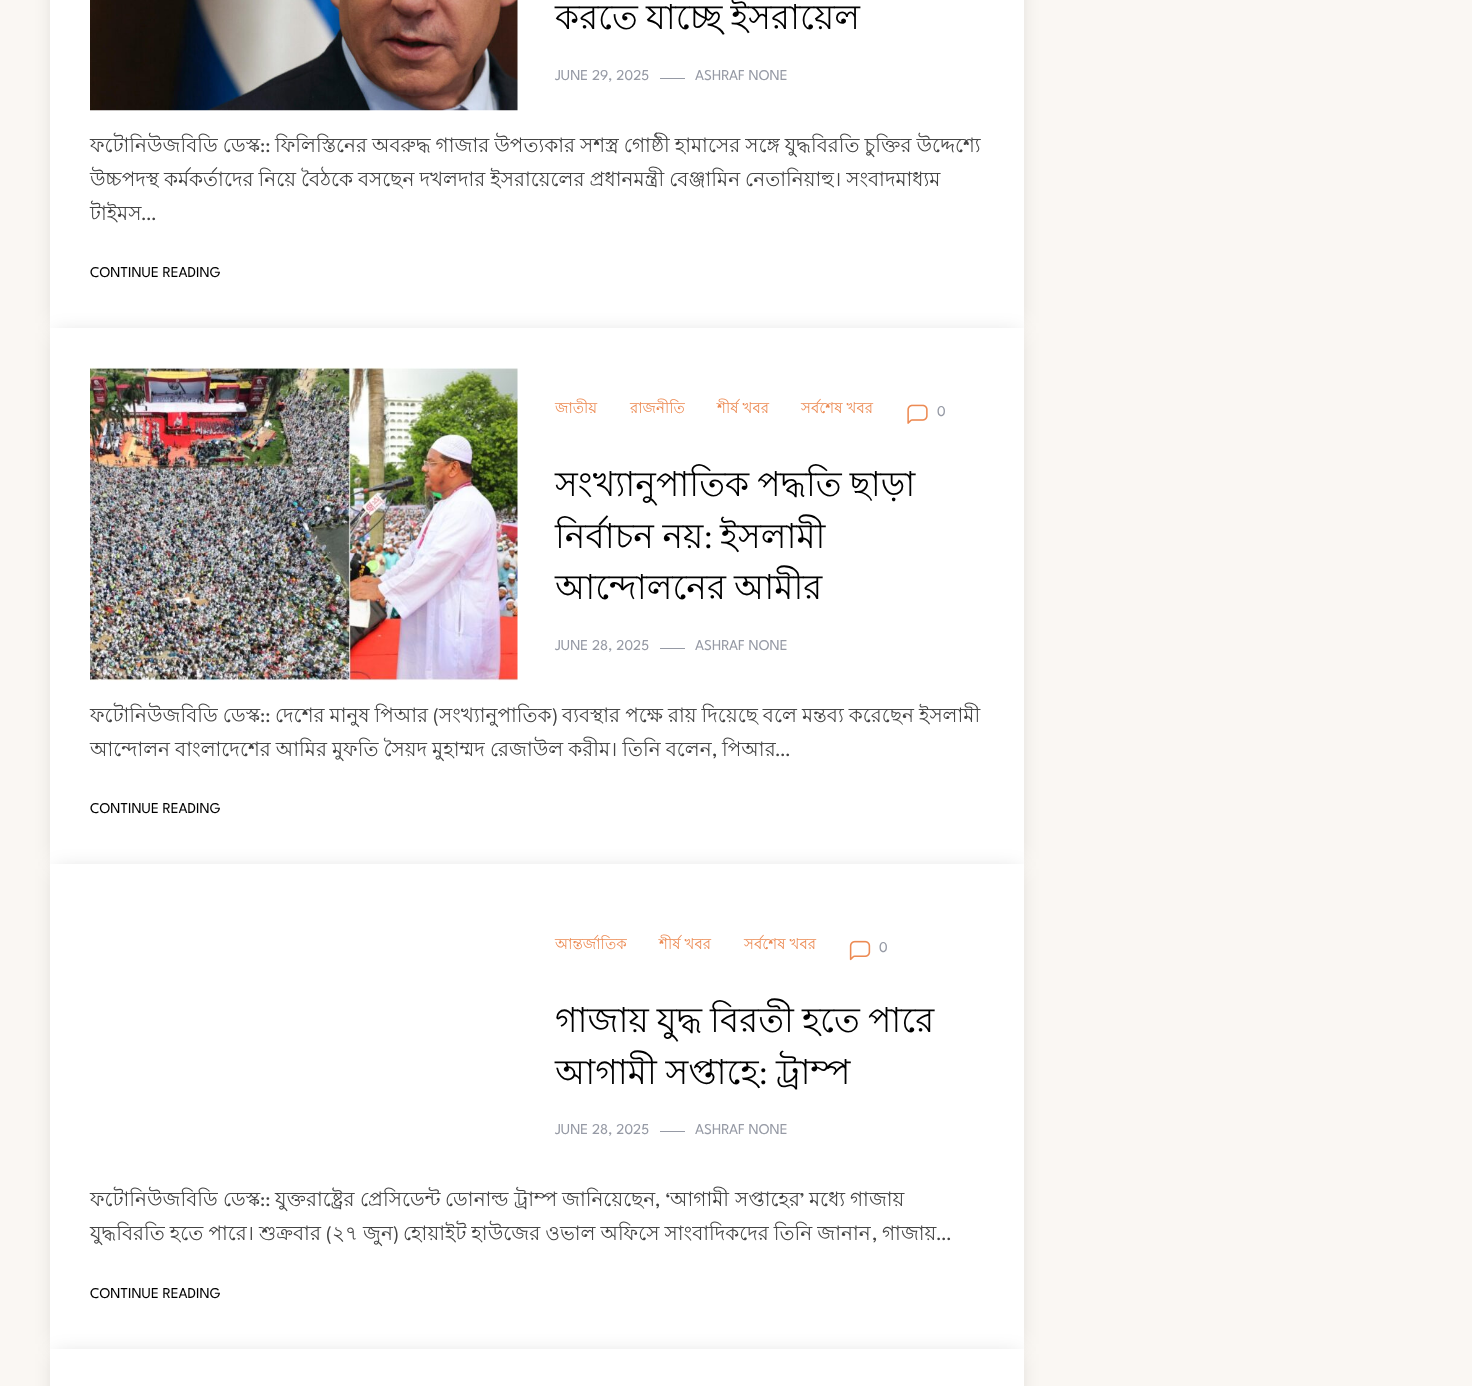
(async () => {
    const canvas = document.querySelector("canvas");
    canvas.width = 1472;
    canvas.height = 1386;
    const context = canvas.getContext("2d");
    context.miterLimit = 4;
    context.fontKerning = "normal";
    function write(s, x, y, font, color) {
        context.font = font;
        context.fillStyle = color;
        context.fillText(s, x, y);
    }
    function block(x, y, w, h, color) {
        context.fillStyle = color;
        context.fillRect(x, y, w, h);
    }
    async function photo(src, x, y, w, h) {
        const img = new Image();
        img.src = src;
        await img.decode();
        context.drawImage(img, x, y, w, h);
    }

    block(0, 0, 1472, 1386, "rgb(250, 247, 243)");
    context.fillStyle = "rgba(0, 0, 0, 0.15)";
    context.filter = "blur(10px)";
    context.beginPath();
    context.rect(55, -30, 964, 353);
    context.fill();
    context.filter = "none";
    block(50, 0, 974, 328, "rgb(255, 255, 255)");
    await photo("media/1.png", 90, 0, 428, 111);
    context.wordSpacing = "-1.5px";
    write("করতে যাচ্ছে ইসরায়েল", 555, 29, "34.5px Lohit Bengali", "rgb(0, 0, 0)");
    context.wordSpacing = "0px";
    write("JUNE 29, 2025", 555, 80, "100 15px League Spartan", "rgb(150, 154, 165)");
    block(660, 78, 25, 1, "rgb(150, 154, 165)");
    write("ASHRAF NONE", 695, 80, "100 15px League Spartan", "rgb(150, 154, 165)");
    context.wordSpacing = "-0.5px";
    write("ফটোনিউজবিডি ডেস্ক", 90, 152, "20px Lohit Bengali", "rgb(68, 68, 68)");
    context.wordSpacing = "0px";
    write("::", 260, 152, "100 20px League Spartan", "rgb(68, 68, 68)");
    context.wordSpacing = "-0.5px";
    write("ফিলিস্তিনের অবরুদ্ধ গাজার উপত্যকার সশস্ত্র গোষ্ঠী হামাসের সঙ্গে যুদ্ধবিরতি চুক্তির উদ্দেশ্যে", 275, 152, "20px Lohit Bengali", "rgb(68, 68, 68)");
    write("উচ্চপদস্থ কর্মকর্তাদের নিয়ে বৈঠকে বসছেন দখলদার ইসরায়েলের প্রধানমন্ত্রী বেঞ্জামিন নেতানিয়াহু। সংবাদমাধ্যম", 90, 186, "20px Lohit Bengali", "rgb(68, 68, 68)");
    context.wordSpacing = "0px";
    write("টাইমস", 90, 220, "20px Lohit Bengali", "rgb(68, 68, 68)");
    write("…", 141, 220, "100 20px League Spartan", "rgb(68, 68, 68)");
    write("CONTINUE READING", 90, 277, "100 15px League Spartan", "rgb(0, 0, 0)");
    context.fillStyle = "rgba(0, 0, 0, 0.15)";
    context.filter = "blur(10px)";
    context.beginPath();
    context.rect(55, 333, 964, 526);
    context.fill();
    context.filter = "none";
    block(50, 328, 974, 536, "rgb(255, 255, 255)");
    await photo("media/2.png", 90, 367, 428, 314);
    write("জাতীয়", 555, 413, "15px Lohit Bengali", "rgb(236, 138, 83)");
    write("রাজনীতি", 630, 413, "15px Lohit Bengali", "rgb(236, 138, 83)");
    write("শীর্ষ খবর", 717, 413, "15px Lohit Bengali", "rgb(236, 138, 83)");
    write("সর্বশেষ খবর", 801, 413, "15px Lohit Bengali", "rgb(236, 138, 83)");
    await photo("media/3.png", 907, 404, 21, 20);
    write("0", 937, 416, "100 15px League Spartan", "rgb(150, 154, 165)");
    context.wordSpacing = "-1.5px";
    write("সংখ্যানুপাতিক পদ্ধতি ছাড়া", 555, 496, "34.5px Lohit Bengali", "rgb(0, 0, 0)");
    context.wordSpacing = "-1px";
    write("নির্বাচন নয়", 555, 548, "34.5px Lohit Bengali", "rgb(0, 0, 0)");
    context.wordSpacing = "0px";
    write(":", 704, 548, "34.5px Prata", "rgb(0, 0, 0)");
    write("ইসলামী", 720, 548, "34.5px Lohit Bengali", "rgb(0, 0, 0)");
    context.wordSpacing = "-1.5px";
    write("আন্দোলনের আমীর", 555, 599, "34.5px Lohit Bengali", "rgb(0, 0, 0)");
    context.wordSpacing = "0px";
    write("JUNE 28, 2025", 555, 650, "100 15px League Spartan", "rgb(150, 154, 165)");
    block(660, 648, 25, 1, "rgb(150, 154, 165)");
    write("ASHRAF NONE", 695, 650, "100 15px League Spartan", "rgb(150, 154, 165)");
    context.wordSpacing = "-0.5px";
    write("ফটোনিউজবিডি ডেস্ক", 90, 722, "20px Lohit Bengali", "rgb(68, 68, 68)");
    context.wordSpacing = "0px";
    write("::", 260, 722, "100 20px League Spartan", "rgb(68, 68, 68)");
    context.wordSpacing = "-0.5px";
    write("দেশের মানুষ পিআর", 275, 722, "20px Lohit Bengali", "rgb(68, 68, 68)");
    context.wordSpacing = "0px";
    write("(", 433, 722, "100 20px League Spartan", "rgb(68, 68, 68)");
    write("সংখ্যানুপাতিক", 439, 722, "20px Lohit Bengali", "rgb(68, 68, 68)");
    write(")", 552, 722, "100 20px League Spartan", "rgb(68, 68, 68)");
    context.wordSpacing = "-0.5px";
    write("ব্যবস্থার পক্ষে রায় দিয়েছে বলে মন্তব্য করেছেন ইসলামী", 562, 722, "20px Lohit Bengali", "rgb(68, 68, 68)");
    write("আন্দোলন বাংলাদেশের আমির মুফতি সৈয়দ মুহাম্মদ রেজাউল করীম। তিনি বলেন", 90, 756, "20px Lohit Bengali", "rgb(68, 68, 68)");
    context.wordSpacing = "0px";
    write(",", 712, 756, "100 20px League Spartan", "rgb(68, 68, 68)");
    write("পিআর", 722, 756, "20px Lohit Bengali", "rgb(68, 68, 68)");
    write("…", 775, 756, "100 20px League Spartan", "rgb(68, 68, 68)");
    write("CONTINUE READING", 90, 813, "100 15px League Spartan", "rgb(0, 0, 0)");
    context.fillStyle = "rgba(0, 0, 0, 0.15)";
    context.filter = "blur(10px)";
    context.beginPath();
    context.rect(55, 869, 964, 475);
    context.fill();
    context.filter = "none";
    block(50, 864, 974, 485, "rgb(255, 255, 255)");
    write("আন্তর্জাতিক", 555, 949, "15px Lohit Bengali", "rgb(236, 138, 83)");
    write("শীর্ষ খবর", 659, 949, "15px Lohit Bengali", "rgb(236, 138, 83)");
    write("সর্বশেষ খবর", 744, 949, "15px Lohit Bengali", "rgb(236, 138, 83)");
    await photo("media/4.png", 849, 940, 22, 21);
    write("0", 879, 952, "100 15px League Spartan", "rgb(150, 154, 165)");
    context.wordSpacing = "-1.5px";
    write("গাজায় যুদ্ধ বিরতী হতে পারে", 555, 1032, "34.5px Lohit Bengali", "rgb(0, 0, 0)");
    context.wordSpacing = "-1px";
    write("আগামী সপ্তাহে", 555, 1084, "34.5px Lohit Bengali", "rgb(0, 0, 0)");
    context.wordSpacing = "0px";
    write(":", 759, 1084, "34.5px Prata", "rgb(0, 0, 0)");
    write("ট্রাম্প", 776, 1084, "34.5px Lohit Bengali", "rgb(0, 0, 0)");
    write("JUNE 28, 2025", 555, 1134, "100 15px League Spartan", "rgb(150, 154, 165)");
    block(660, 1131, 25, 1, "rgb(150, 154, 165)");
    write("ASHRAF NONE", 695, 1134, "100 15px League Spartan", "rgb(150, 154, 165)");
    write("ফটোনিউজবিডি", 90, 1206, "20px Lohit Bengali", "rgb(68, 68, 68)");
    write("ডেস্ক", 223, 1206, "20px Lohit Bengali", "rgb(68, 68, 68)");
    write("::", 260, 1206, "100 20px League Spartan", "rgb(68, 68, 68)");
    write("যুক্তরাষ্ট্রের", 275, 1206, "20px Lohit Bengali", "rgb(68, 68, 68)");
    write("প্রেসিডেন্ট", 360, 1206, "20px Lohit Bengali", "rgb(68, 68, 68)");
    write("ডোনাল্ড", 445, 1206, "20px Lohit Bengali", "rgb(68, 68, 68)");
    write("ট্রাম্প", 514, 1206, "20px Lohit Bengali", "rgb(68, 68, 68)");
    write("জানিয়েছেন", 562, 1206, "20px Lohit Bengali", "rgb(68, 68, 68)");
    write(", ‘", 655, 1206, "100 20px League Spartan", "rgb(68, 68, 68)");
    write("আগামী", 670, 1206, "20px Lohit Bengali", "rgb(68, 68, 68)");
    write("সপ্তাহের", 735, 1206, "20px Lohit Bengali", "rgb(68, 68, 68)");
    write("’", 800, 1206, "100 20px League Spartan", "rgb(68, 68, 68)");
    write("মধ্যে", 809, 1206, "20px Lohit Bengali", "rgb(68, 68, 68)");
    write("গাজায়", 850, 1206, "20px Lohit Bengali", "rgb(68, 68, 68)");
    context.wordSpacing = "-0.5px";
    write("যুদ্ধবিরতি হতে পারে। শুক্রবার", 90, 1240, "20px Lohit Bengali", "rgb(68, 68, 68)");
    context.wordSpacing = "0px";
    write("(", 326, 1240, "100 20px League Spartan", "rgb(68, 68, 68)");
    context.wordSpacing = "-0.5px";
    write("২৭ জুন", 332, 1240, "20px Lohit Bengali", "rgb(68, 68, 68)");
    context.wordSpacing = "0px";
    write(")", 393, 1240, "100 20px League Spartan", "rgb(68, 68, 68)");
    context.wordSpacing = "-0.5px";
    write("হোয়াইট হাউজের ওভাল অফিসে সাংবাদিকদের তিনি জানান", 403, 1240, "20px Lohit Bengali", "rgb(68, 68, 68)");
    context.wordSpacing = "0px";
    write(",", 872, 1240, "100 20px League Spartan", "rgb(68, 68, 68)");
    write("গাজায়", 882, 1240, "20px Lohit Bengali", "rgb(68, 68, 68)");
    write("…", 936, 1240, "100 20px League Spartan", "rgb(68, 68, 68)");
    write("CONTINUE READING", 90, 1298, "100 15px League Spartan", "rgb(0, 0, 0)");
    context.fillStyle = "rgba(0, 0, 0, 0.15)";
    context.filter = "blur(10px)";
    context.beginPath();
    context.rect(55, 1354, 964, 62);
    context.fill();
    context.filter = "none";
    block(50, 1349, 974, 37, "rgb(255, 255, 255)");
})();
